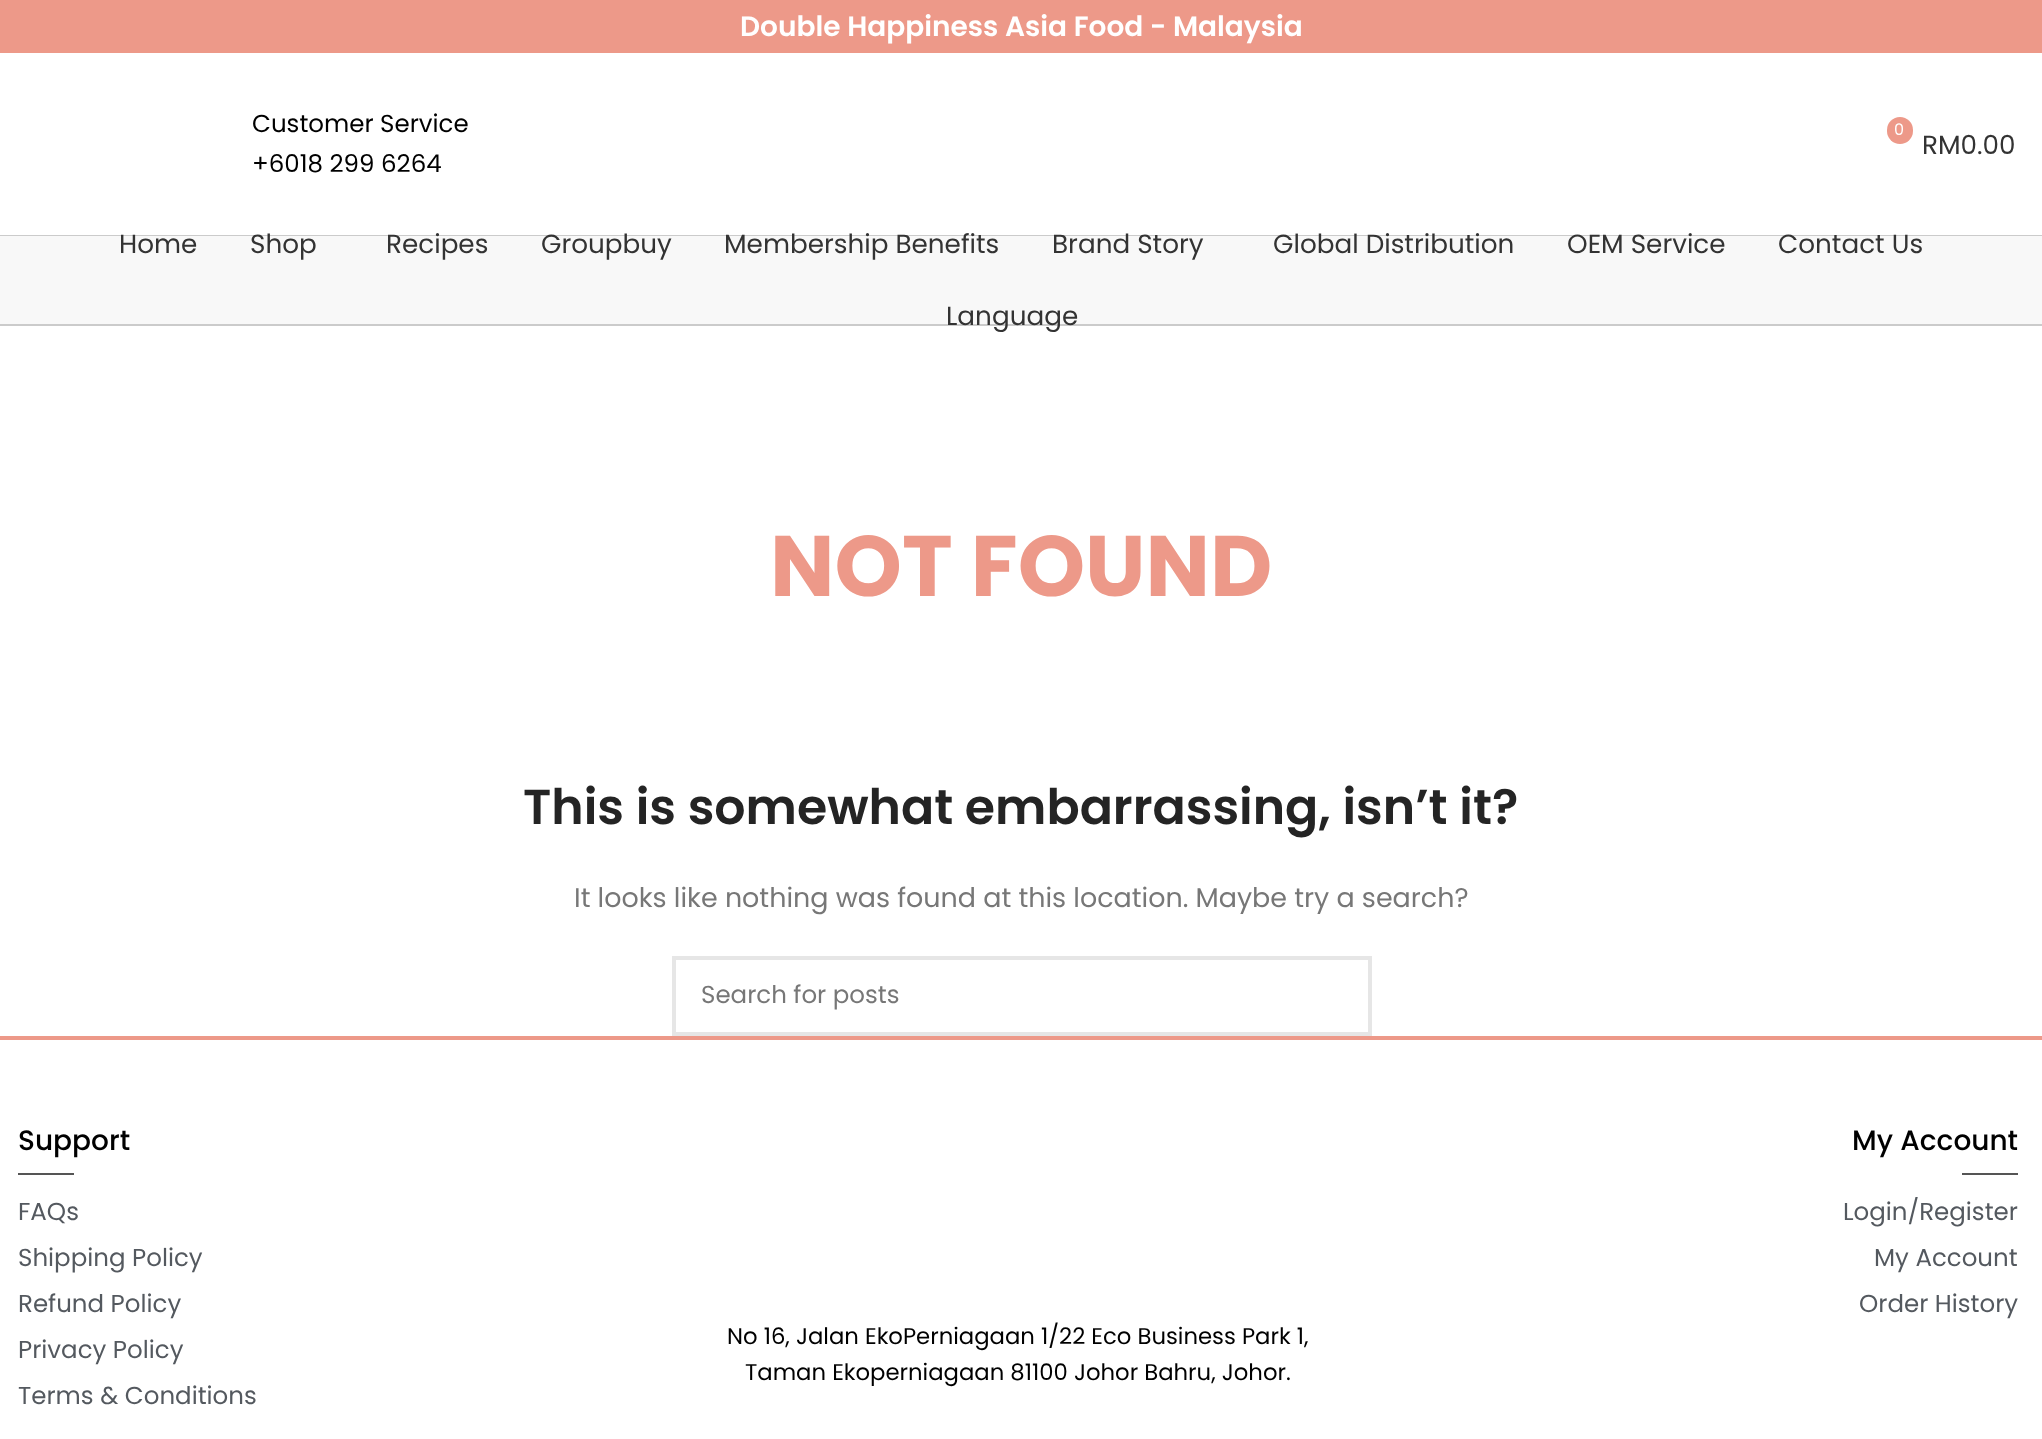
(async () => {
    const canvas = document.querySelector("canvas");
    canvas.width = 2042;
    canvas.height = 1439;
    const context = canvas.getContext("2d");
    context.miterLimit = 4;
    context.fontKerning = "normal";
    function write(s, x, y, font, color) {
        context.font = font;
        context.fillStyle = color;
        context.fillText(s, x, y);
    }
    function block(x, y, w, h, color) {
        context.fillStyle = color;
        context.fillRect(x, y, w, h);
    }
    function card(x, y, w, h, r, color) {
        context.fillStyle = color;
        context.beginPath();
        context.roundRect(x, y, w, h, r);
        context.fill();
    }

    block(0, 0, 2042, 1439, "rgb(255, 255, 255)");
    block(0, 0, 2042, 53, "rgb(237, 153, 137)");
    write("Double Happiness Asia Food - Malaysia", 740, 36, "600 28px Poppins", "rgb(255, 255, 255)");
    block(0, 235, 2042, 1, "rgb(203, 203, 203)");
    write("Customer Service", 252, 132, "24.5px Poppins", "rgb(0, 0, 0)");
    write("+6018 299 6264", 252, 172, "24.5px Poppins", "rgb(0, 0, 0)");
    card(1887, 117, 26, 27, 13, "rgb(237, 153, 137)");
    write("0", 1894, 135, "16px Poppins", "rgb(255, 255, 255)");
    write("RM0.00", 1922, 154, "26.25px Poppins", "rgb(51, 51, 51)");
    block(0, 236, 2042, 88, "rgb(248, 248, 248)");
    block(0, 324, 2042, 2, "rgb(203, 203, 203)");
    write("Home", 119, 253, "26.25px Poppins", "rgb(51, 51, 51)");
    write("Shop", 250, 253, "26.25px Poppins", "rgb(51, 51, 51)");
    write("Recipes", 386, 253, "26.25px Poppins", "rgb(51, 51, 51)");
    write("Groupbuy", 541, 253, "26.25px Poppins", "rgb(51, 51, 51)");
    write("Membership Benefits", 724, 253, "26.25px Poppins", "rgb(51, 51, 51)");
    write("Brand Story", 1052, 253, "26.25px Poppins", "rgb(51, 51, 51)");
    write("Global Distribution", 1273, 253, "26.25px Poppins", "rgb(51, 51, 51)");
    write("OEM Service", 1567, 253, "26.25px Poppins", "rgb(51, 51, 51)");
    write("Contact Us", 1778, 253, "26.25px Poppins", "rgb(51, 51, 51)");
    write("Language", 946, 325, "26.25px Poppins", "rgb(51, 51, 51)");
    write("NOT FOUND", 770, 596, "bold 85.75px Poppins", "rgb(237, 153, 137)");
    write("This is somewhat embarrassing, isn’t it?", 523, 824, "600 49px Poppins", "rgb(36, 36, 36)");
    write("It looks like nothing was found at this location. Maybe try a search?", 574, 907, "26.95px Poppins", "rgb(119, 119, 119)");
    context.strokeStyle = "rgb(230, 230, 230)";
    context.lineWidth = 4;
    context.strokeRect(674, 958, 696, 76);
    write("Search for posts", 701, 1003, "24.5px Poppins", "rgb(119, 119, 119)");
    block(0, 1036, 2042, 4, "rgb(237, 153, 137)");
    write("Support", 18, 1150, "500 28px Poppins", "rgb(0, 0, 0)");
    block(18, 1173, 56, 2, "rgb(85, 85, 85)");
    write("FAQs", 18, 1220, "24.5px Poppins", "rgb(84, 89, 95)");
    write("Shipping Policy", 18, 1266, "24.5px Poppins", "rgb(84, 89, 95)");
    write("Refund Policy", 18, 1312, "24.5px Poppins", "rgb(84, 89, 95)");
    write("Privacy Policy", 18, 1358, "24.5px Poppins", "rgb(84, 89, 95)");
    write("Terms & Conditions", 18, 1404, "24.5px Poppins", "rgb(84, 89, 95)");
    write("My Account", 1852, 1150, "500 28px Poppins", "rgb(0, 0, 0)");
    block(1962, 1173, 56, 2, "rgb(85, 85, 85)");
    write("Login/Register", 1843, 1220, "24.5px Poppins", "rgb(84, 89, 95)");
    write("My Account", 1874, 1266, "24.5px Poppins", "rgb(84, 89, 95)");
    write("Order History", 1859, 1312, "24.5px Poppins", "rgb(84, 89, 95)");
    write("No 16, Jalan EkoPerniagaan 1/22 Eco Business Park 1,", 727, 1344, "22.75px Poppins", "rgb(0, 0, 0)");
    write("Taman Ekoperniagaan 81100 Johor Bahru, Johor.", 745, 1380, "22.75px Poppins", "rgb(0, 0, 0)");
})();
